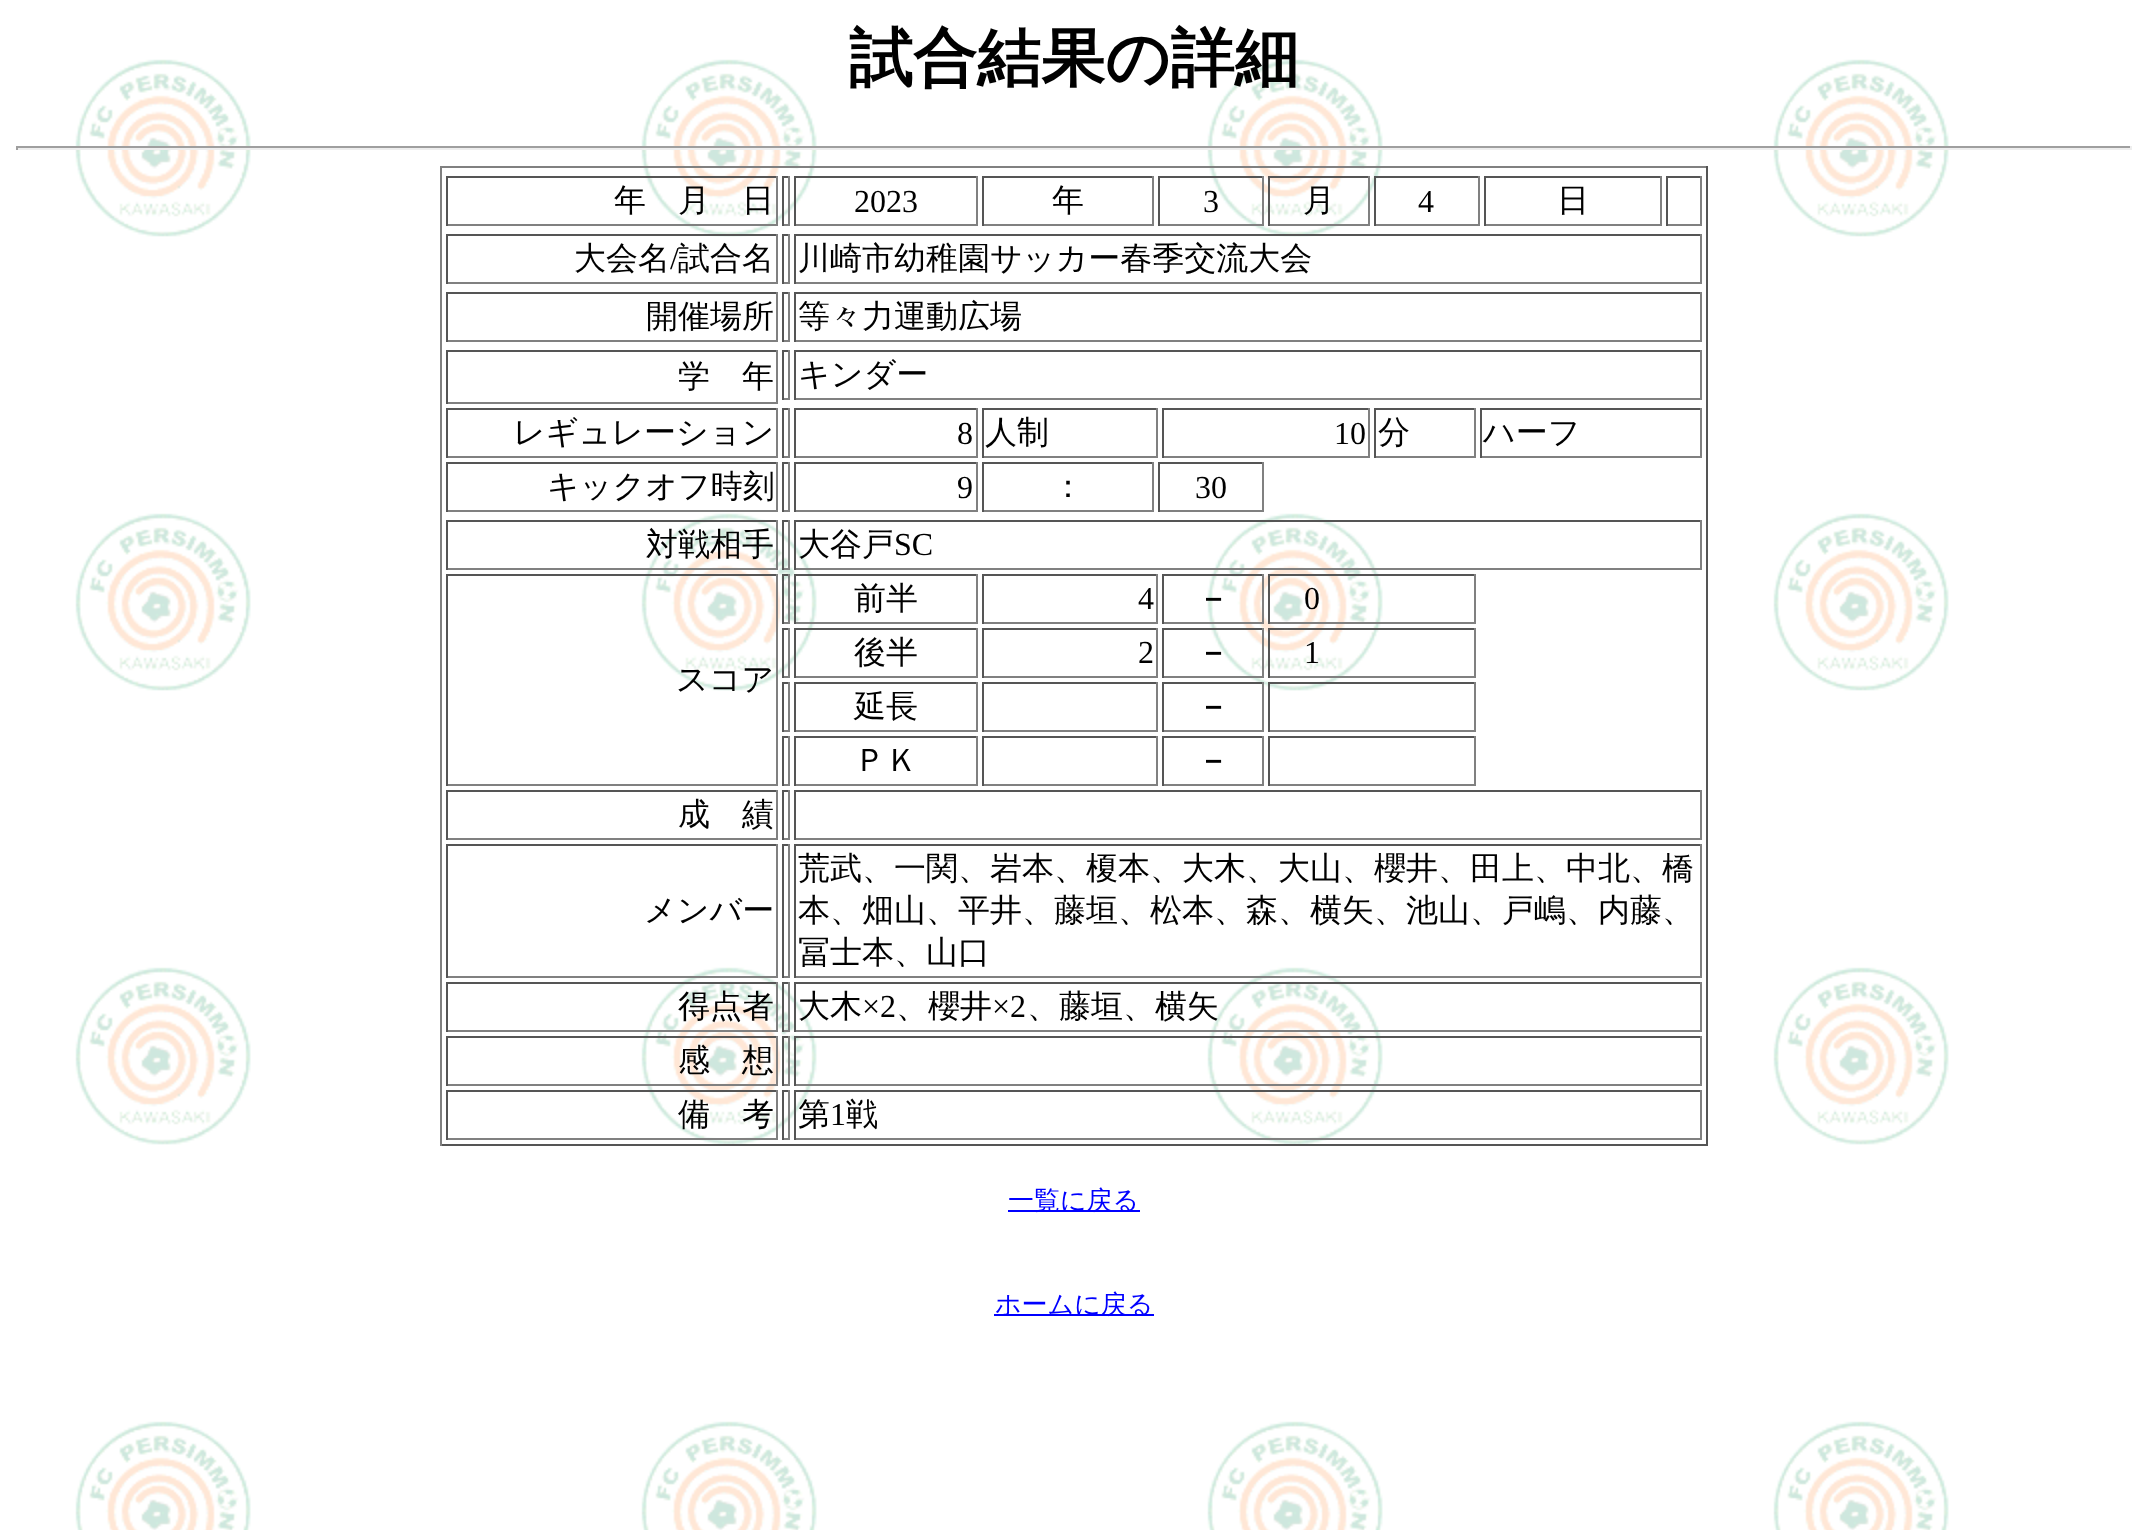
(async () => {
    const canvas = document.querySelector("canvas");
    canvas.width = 2147;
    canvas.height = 1530;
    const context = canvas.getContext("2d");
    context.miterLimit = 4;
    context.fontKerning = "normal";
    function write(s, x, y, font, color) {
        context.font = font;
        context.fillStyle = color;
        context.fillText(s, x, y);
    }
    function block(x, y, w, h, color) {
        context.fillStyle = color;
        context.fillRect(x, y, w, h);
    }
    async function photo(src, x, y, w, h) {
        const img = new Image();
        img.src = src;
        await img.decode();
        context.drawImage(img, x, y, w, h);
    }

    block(0, 0, 2147, 1530, "rgb(255, 255, 255)");
    await photo("media/1.png", 0, 0, 2147, 1530);
    write("試合結果の詳細", 849, 80, "bold 64px WenQuanYi Zen Hei", "rgb(0, 0, 0)");
    block(16, 146, 2116, 2, "rgb(159, 159, 159)");
    block(2130, 146, 2, 4, "rgb(238, 238, 238)");
    block(16, 148, 2116, 2, "rgb(238, 238, 238)");
    block(16, 146, 2, 4, "rgb(159, 159, 159)");
    block(440, 166, 1268, 2, "rgb(128, 128, 128)");
    block(1706, 166, 2, 980, "rgb(85, 85, 85)");
    block(440, 1144, 1268, 2, "rgb(85, 85, 85)");
    block(440, 166, 2, 980, "rgb(128, 128, 128)");
    block(446, 176, 332, 2, "rgb(85, 85, 85)");
    block(776, 176, 2, 50, "rgb(128, 128, 128)");
    block(446, 224, 332, 2, "rgb(128, 128, 128)");
    block(446, 176, 2, 50, "rgb(85, 85, 85)");
    write("年　月　日", 614, 211, "500 32px WenQuanYi Zen Hei", "rgb(0, 0, 0)");
    block(782, 176, 8, 2, "rgb(85, 85, 85)");
    block(788, 176, 2, 50, "rgb(128, 128, 128)");
    block(782, 224, 8, 2, "rgb(128, 128, 128)");
    block(782, 176, 2, 50, "rgb(85, 85, 85)");
    block(794, 176, 184, 2, "rgb(85, 85, 85)");
    block(976, 176, 2, 50, "rgb(128, 128, 128)");
    block(794, 224, 184, 2, "rgb(128, 128, 128)");
    block(794, 176, 2, 50, "rgb(85, 85, 85)");
    write("2023", 854, 212, "32px Liberation Serif", "rgb(0, 0, 0)");
    block(982, 176, 172, 2, "rgb(85, 85, 85)");
    block(1152, 176, 2, 50, "rgb(128, 128, 128)");
    block(982, 224, 172, 2, "rgb(128, 128, 128)");
    block(982, 176, 2, 50, "rgb(85, 85, 85)");
    write("年", 1052, 211, "500 32px WenQuanYi Zen Hei", "rgb(0, 0, 0)");
    block(1158, 176, 106, 2, "rgb(85, 85, 85)");
    block(1262, 176, 2, 50, "rgb(128, 128, 128)");
    block(1158, 224, 106, 2, "rgb(128, 128, 128)");
    block(1158, 176, 2, 50, "rgb(85, 85, 85)");
    write("3", 1203, 212, "32px Liberation Serif", "rgb(0, 0, 0)");
    block(1268, 176, 102, 2, "rgb(85, 85, 85)");
    block(1368, 176, 2, 50, "rgb(128, 128, 128)");
    block(1268, 224, 102, 2, "rgb(128, 128, 128)");
    block(1268, 176, 2, 50, "rgb(85, 85, 85)");
    write("月", 1303, 211, "500 32px WenQuanYi Zen Hei", "rgb(0, 0, 0)");
    block(1374, 176, 106, 2, "rgb(85, 85, 85)");
    block(1478, 176, 2, 50, "rgb(128, 128, 128)");
    block(1374, 224, 106, 2, "rgb(128, 128, 128)");
    block(1374, 176, 2, 50, "rgb(85, 85, 85)");
    write("4", 1418, 212, "32px Liberation Serif", "rgb(0, 0, 0)");
    block(1484, 176, 178, 2, "rgb(85, 85, 85)");
    block(1660, 176, 2, 50, "rgb(128, 128, 128)");
    block(1484, 224, 178, 2, "rgb(128, 128, 128)");
    block(1484, 176, 2, 50, "rgb(85, 85, 85)");
    write("日", 1557, 211, "500 32px WenQuanYi Zen Hei", "rgb(0, 0, 0)");
    block(1666, 176, 36, 2, "rgb(85, 85, 85)");
    block(1700, 176, 2, 50, "rgb(128, 128, 128)");
    block(1666, 224, 36, 2, "rgb(128, 128, 128)");
    block(1666, 176, 2, 50, "rgb(85, 85, 85)");
    block(446, 234, 332, 2, "rgb(85, 85, 85)");
    block(776, 234, 2, 50, "rgb(128, 128, 128)");
    block(446, 282, 332, 2, "rgb(128, 128, 128)");
    block(446, 234, 2, 50, "rgb(85, 85, 85)");
    write("大会名", 574, 269, "500 32px WenQuanYi Zen Hei", "rgb(0, 0, 0)");
    write("/", 670, 269, "32px Liberation Serif", "rgb(0, 0, 0)");
    write("試合名", 678, 269, "500 32px WenQuanYi Zen Hei", "rgb(0, 0, 0)");
    block(782, 234, 8, 2, "rgb(85, 85, 85)");
    block(788, 234, 2, 50, "rgb(128, 128, 128)");
    block(782, 282, 8, 2, "rgb(128, 128, 128)");
    block(782, 234, 2, 50, "rgb(85, 85, 85)");
    block(794, 234, 908, 2, "rgb(85, 85, 85)");
    block(1700, 234, 2, 50, "rgb(128, 128, 128)");
    block(794, 282, 908, 2, "rgb(128, 128, 128)");
    block(794, 234, 2, 50, "rgb(85, 85, 85)");
    write("川崎市幼稚園サッカー春季交流大会", 798, 269, "500 32px WenQuanYi Zen Hei", "rgb(0, 0, 0)");
    block(446, 292, 332, 2, "rgb(85, 85, 85)");
    block(776, 292, 2, 50, "rgb(128, 128, 128)");
    block(446, 340, 332, 2, "rgb(128, 128, 128)");
    block(446, 292, 2, 50, "rgb(85, 85, 85)");
    write("開催場所", 646, 327, "500 32px WenQuanYi Zen Hei", "rgb(0, 0, 0)");
    block(782, 292, 8, 2, "rgb(85, 85, 85)");
    block(788, 292, 2, 50, "rgb(128, 128, 128)");
    block(782, 340, 8, 2, "rgb(128, 128, 128)");
    block(782, 292, 2, 50, "rgb(85, 85, 85)");
    block(794, 292, 908, 2, "rgb(85, 85, 85)");
    block(1700, 292, 2, 50, "rgb(128, 128, 128)");
    block(794, 340, 908, 2, "rgb(128, 128, 128)");
    block(794, 292, 2, 50, "rgb(85, 85, 85)");
    write("等々力運動広場", 798, 327, "500 32px WenQuanYi Zen Hei", "rgb(0, 0, 0)");
    block(446, 350, 332, 2, "rgb(85, 85, 85)");
    block(776, 350, 2, 54, "rgb(128, 128, 128)");
    block(446, 402, 332, 2, "rgb(128, 128, 128)");
    block(446, 350, 2, 54, "rgb(85, 85, 85)");
    write("学　年", 678, 387, "500 32px WenQuanYi Zen Hei", "rgb(0, 0, 0)");
    block(782, 350, 8, 2, "rgb(85, 85, 85)");
    block(788, 350, 2, 50, "rgb(128, 128, 128)");
    block(782, 398, 8, 2, "rgb(128, 128, 128)");
    block(782, 350, 2, 50, "rgb(85, 85, 85)");
    block(794, 350, 908, 2, "rgb(85, 85, 85)");
    block(1700, 350, 2, 50, "rgb(128, 128, 128)");
    block(794, 398, 908, 2, "rgb(128, 128, 128)");
    block(794, 350, 2, 50, "rgb(85, 85, 85)");
    write("キンダー", 798, 385, "500 32px WenQuanYi Zen Hei", "rgb(0, 0, 0)");
    block(446, 408, 332, 2, "rgb(85, 85, 85)");
    block(776, 408, 2, 50, "rgb(128, 128, 128)");
    block(446, 456, 332, 2, "rgb(128, 128, 128)");
    block(446, 408, 2, 50, "rgb(85, 85, 85)");
    write("レギュレーション", 513, 443, "500 32px WenQuanYi Zen Hei", "rgb(0, 0, 0)");
    block(782, 408, 8, 2, "rgb(85, 85, 85)");
    block(788, 408, 2, 50, "rgb(128, 128, 128)");
    block(782, 456, 8, 2, "rgb(128, 128, 128)");
    block(782, 408, 2, 50, "rgb(85, 85, 85)");
    block(794, 408, 184, 2, "rgb(85, 85, 85)");
    block(976, 408, 2, 50, "rgb(128, 128, 128)");
    block(794, 456, 184, 2, "rgb(128, 128, 128)");
    block(794, 408, 2, 50, "rgb(85, 85, 85)");
    write("8", 957, 444, "32px Liberation Serif", "rgb(0, 0, 0)");
    block(982, 408, 176, 2, "rgb(85, 85, 85)");
    block(1156, 408, 2, 50, "rgb(128, 128, 128)");
    block(982, 456, 176, 2, "rgb(128, 128, 128)");
    block(982, 408, 2, 50, "rgb(85, 85, 85)");
    write("人制", 985, 443, "500 32px WenQuanYi Zen Hei", "rgb(0, 0, 0)");
    block(1162, 408, 208, 2, "rgb(85, 85, 85)");
    block(1368, 408, 2, 50, "rgb(128, 128, 128)");
    block(1162, 456, 208, 2, "rgb(128, 128, 128)");
    block(1162, 408, 2, 50, "rgb(85, 85, 85)");
    write("10", 1334, 444, "32px Liberation Serif", "rgb(0, 0, 0)");
    block(1374, 408, 102, 2, "rgb(85, 85, 85)");
    block(1474, 408, 2, 50, "rgb(128, 128, 128)");
    block(1374, 456, 102, 2, "rgb(128, 128, 128)");
    block(1374, 408, 2, 50, "rgb(85, 85, 85)");
    write("分", 1378, 443, "500 32px WenQuanYi Zen Hei", "rgb(0, 0, 0)");
    block(1480, 408, 222, 2, "rgb(85, 85, 85)");
    block(1700, 408, 2, 50, "rgb(128, 128, 128)");
    block(1480, 456, 222, 2, "rgb(128, 128, 128)");
    block(1480, 408, 2, 50, "rgb(85, 85, 85)");
    write("ハーフ", 1483, 443, "500 32px WenQuanYi Zen Hei", "rgb(0, 0, 0)");
    block(446, 462, 332, 2, "rgb(85, 85, 85)");
    block(776, 462, 2, 50, "rgb(128, 128, 128)");
    block(446, 510, 332, 2, "rgb(128, 128, 128)");
    block(446, 462, 2, 50, "rgb(85, 85, 85)");
    write("キックオフ時刻", 547, 497, "500 32px WenQuanYi Zen Hei", "rgb(0, 0, 0)");
    block(782, 462, 8, 2, "rgb(85, 85, 85)");
    block(788, 462, 2, 50, "rgb(128, 128, 128)");
    block(782, 510, 8, 2, "rgb(128, 128, 128)");
    block(782, 462, 2, 50, "rgb(85, 85, 85)");
    block(794, 462, 184, 2, "rgb(85, 85, 85)");
    block(976, 462, 2, 50, "rgb(128, 128, 128)");
    block(794, 510, 184, 2, "rgb(128, 128, 128)");
    block(794, 462, 2, 50, "rgb(85, 85, 85)");
    write("9", 957, 498, "32px Liberation Serif", "rgb(0, 0, 0)");
    block(982, 462, 172, 2, "rgb(85, 85, 85)");
    block(1152, 462, 2, 50, "rgb(128, 128, 128)");
    block(982, 510, 172, 2, "rgb(128, 128, 128)");
    block(982, 462, 2, 50, "rgb(85, 85, 85)");
    write("：", 1052, 497, "500 32px WenQuanYi Zen Hei", "rgb(0, 0, 0)");
    block(1158, 462, 106, 2, "rgb(85, 85, 85)");
    block(1262, 462, 2, 50, "rgb(128, 128, 128)");
    block(1158, 510, 106, 2, "rgb(128, 128, 128)");
    block(1158, 462, 2, 50, "rgb(85, 85, 85)");
    write("30", 1195, 498, "32px Liberation Serif", "rgb(0, 0, 0)");
    block(446, 520, 332, 2, "rgb(85, 85, 85)");
    block(776, 520, 2, 50, "rgb(128, 128, 128)");
    block(446, 568, 332, 2, "rgb(128, 128, 128)");
    block(446, 520, 2, 50, "rgb(85, 85, 85)");
    write("対戦相手", 646, 555, "500 32px WenQuanYi Zen Hei", "rgb(0, 0, 0)");
    block(782, 520, 8, 2, "rgb(85, 85, 85)");
    block(788, 520, 2, 50, "rgb(128, 128, 128)");
    block(782, 568, 8, 2, "rgb(128, 128, 128)");
    block(782, 520, 2, 50, "rgb(85, 85, 85)");
    block(794, 520, 908, 2, "rgb(85, 85, 85)");
    block(1700, 520, 2, 50, "rgb(128, 128, 128)");
    block(794, 568, 908, 2, "rgb(128, 128, 128)");
    block(794, 520, 2, 50, "rgb(85, 85, 85)");
    write("大谷戸", 798, 555, "500 32px WenQuanYi Zen Hei", "rgb(0, 0, 0)");
    write("SC", 894, 555, "32px Liberation Serif", "rgb(0, 0, 0)");
    block(782, 574, 8, 2, "rgb(85, 85, 85)");
    block(788, 574, 2, 50, "rgb(128, 128, 128)");
    block(782, 622, 8, 2, "rgb(128, 128, 128)");
    block(782, 574, 2, 50, "rgb(85, 85, 85)");
    block(794, 574, 184, 2, "rgb(85, 85, 85)");
    block(976, 574, 2, 50, "rgb(128, 128, 128)");
    block(794, 622, 184, 2, "rgb(128, 128, 128)");
    block(794, 574, 2, 50, "rgb(85, 85, 85)");
    write("前半", 854, 609, "500 32px WenQuanYi Zen Hei", "rgb(0, 0, 0)");
    block(982, 574, 176, 2, "rgb(85, 85, 85)");
    block(1156, 574, 2, 50, "rgb(128, 128, 128)");
    block(982, 622, 176, 2, "rgb(128, 128, 128)");
    block(982, 574, 2, 50, "rgb(85, 85, 85)");
    write("4", 1138, 609, "32px Liberation Serif", "rgb(0, 0, 0)");
    block(1162, 574, 102, 2, "rgb(85, 85, 85)");
    block(1262, 574, 2, 50, "rgb(128, 128, 128)");
    block(1162, 622, 102, 2, "rgb(128, 128, 128)");
    block(1162, 574, 2, 50, "rgb(85, 85, 85)");
    write("－", 1197, 609, "bold 32px WenQuanYi Zen Hei", "rgb(0, 0, 0)");
    block(1268, 574, 208, 2, "rgb(85, 85, 85)");
    block(1474, 574, 2, 50, "rgb(128, 128, 128)");
    block(1268, 622, 208, 2, "rgb(128, 128, 128)");
    block(1268, 574, 2, 50, "rgb(85, 85, 85)");
    write("0", 1304, 609, "32px Liberation Serif", "rgb(0, 0, 0)");
    block(446, 574, 332, 2, "rgb(85, 85, 85)");
    block(776, 574, 2, 212, "rgb(128, 128, 128)");
    block(446, 784, 332, 2, "rgb(128, 128, 128)");
    block(446, 574, 2, 212, "rgb(85, 85, 85)");
    write("スコア", 676, 690, "500 32px WenQuanYi Zen Hei", "rgb(0, 0, 0)");
    block(782, 628, 8, 2, "rgb(85, 85, 85)");
    block(788, 628, 2, 50, "rgb(128, 128, 128)");
    block(782, 676, 8, 2, "rgb(128, 128, 128)");
    block(782, 628, 2, 50, "rgb(85, 85, 85)");
    block(794, 628, 184, 2, "rgb(85, 85, 85)");
    block(976, 628, 2, 50, "rgb(128, 128, 128)");
    block(794, 676, 184, 2, "rgb(128, 128, 128)");
    block(794, 628, 2, 50, "rgb(85, 85, 85)");
    write("後半", 854, 663, "500 32px WenQuanYi Zen Hei", "rgb(0, 0, 0)");
    block(982, 628, 176, 2, "rgb(85, 85, 85)");
    block(1156, 628, 2, 50, "rgb(128, 128, 128)");
    block(982, 676, 176, 2, "rgb(128, 128, 128)");
    block(982, 628, 2, 50, "rgb(85, 85, 85)");
    write("2", 1138, 663, "32px Liberation Serif", "rgb(0, 0, 0)");
    block(1162, 628, 102, 2, "rgb(85, 85, 85)");
    block(1262, 628, 2, 50, "rgb(128, 128, 128)");
    block(1162, 676, 102, 2, "rgb(128, 128, 128)");
    block(1162, 628, 2, 50, "rgb(85, 85, 85)");
    write("－", 1197, 663, "bold 32px WenQuanYi Zen Hei", "rgb(0, 0, 0)");
    block(1268, 628, 208, 2, "rgb(85, 85, 85)");
    block(1474, 628, 2, 50, "rgb(128, 128, 128)");
    block(1268, 676, 208, 2, "rgb(128, 128, 128)");
    block(1268, 628, 2, 50, "rgb(85, 85, 85)");
    write("1", 1304, 663, "32px Liberation Serif", "rgb(0, 0, 0)");
    block(782, 682, 8, 2, "rgb(85, 85, 85)");
    block(788, 682, 2, 50, "rgb(128, 128, 128)");
    block(782, 730, 8, 2, "rgb(128, 128, 128)");
    block(782, 682, 2, 50, "rgb(85, 85, 85)");
    block(794, 682, 184, 2, "rgb(85, 85, 85)");
    block(976, 682, 2, 50, "rgb(128, 128, 128)");
    block(794, 730, 184, 2, "rgb(128, 128, 128)");
    block(794, 682, 2, 50, "rgb(85, 85, 85)");
    write("延長", 854, 717, "500 32px WenQuanYi Zen Hei", "rgb(0, 0, 0)");
    block(982, 682, 176, 2, "rgb(85, 85, 85)");
    block(1156, 682, 2, 50, "rgb(128, 128, 128)");
    block(982, 730, 176, 2, "rgb(128, 128, 128)");
    block(982, 682, 2, 50, "rgb(85, 85, 85)");
    block(1162, 682, 102, 2, "rgb(85, 85, 85)");
    block(1262, 682, 2, 50, "rgb(128, 128, 128)");
    block(1162, 730, 102, 2, "rgb(128, 128, 128)");
    block(1162, 682, 2, 50, "rgb(85, 85, 85)");
    write("－", 1197, 717, "bold 32px WenQuanYi Zen Hei", "rgb(0, 0, 0)");
    block(1268, 682, 208, 2, "rgb(85, 85, 85)");
    block(1474, 682, 2, 50, "rgb(128, 128, 128)");
    block(1268, 730, 208, 2, "rgb(128, 128, 128)");
    block(1268, 682, 2, 50, "rgb(85, 85, 85)");
    block(782, 736, 8, 2, "rgb(85, 85, 85)");
    block(788, 736, 2, 50, "rgb(128, 128, 128)");
    block(782, 784, 8, 2, "rgb(128, 128, 128)");
    block(782, 736, 2, 50, "rgb(85, 85, 85)");
    block(794, 736, 184, 2, "rgb(85, 85, 85)");
    block(976, 736, 2, 50, "rgb(128, 128, 128)");
    block(794, 784, 184, 2, "rgb(128, 128, 128)");
    block(794, 736, 2, 50, "rgb(85, 85, 85)");
    write("ＰＫ", 854, 771, "500 32px WenQuanYi Zen Hei", "rgb(0, 0, 0)");
    block(982, 736, 176, 2, "rgb(85, 85, 85)");
    block(1156, 736, 2, 50, "rgb(128, 128, 128)");
    block(982, 784, 176, 2, "rgb(128, 128, 128)");
    block(982, 736, 2, 50, "rgb(85, 85, 85)");
    block(1162, 736, 102, 2, "rgb(85, 85, 85)");
    block(1262, 736, 2, 50, "rgb(128, 128, 128)");
    block(1162, 784, 102, 2, "rgb(128, 128, 128)");
    block(1162, 736, 2, 50, "rgb(85, 85, 85)");
    write("－", 1197, 771, "bold 32px WenQuanYi Zen Hei", "rgb(0, 0, 0)");
    block(1268, 736, 208, 2, "rgb(85, 85, 85)");
    block(1474, 736, 2, 50, "rgb(128, 128, 128)");
    block(1268, 784, 208, 2, "rgb(128, 128, 128)");
    block(1268, 736, 2, 50, "rgb(85, 85, 85)");
    block(446, 790, 332, 2, "rgb(85, 85, 85)");
    block(776, 790, 2, 50, "rgb(128, 128, 128)");
    block(446, 838, 332, 2, "rgb(128, 128, 128)");
    block(446, 790, 2, 50, "rgb(85, 85, 85)");
    write("成　績", 678, 825, "500 32px WenQuanYi Zen Hei", "rgb(0, 0, 0)");
    block(782, 790, 8, 2, "rgb(85, 85, 85)");
    block(788, 790, 2, 50, "rgb(128, 128, 128)");
    block(782, 838, 8, 2, "rgb(128, 128, 128)");
    block(782, 790, 2, 50, "rgb(85, 85, 85)");
    block(794, 790, 908, 2, "rgb(85, 85, 85)");
    block(1700, 790, 2, 50, "rgb(128, 128, 128)");
    block(794, 838, 908, 2, "rgb(128, 128, 128)");
    block(794, 790, 2, 50, "rgb(85, 85, 85)");
    block(446, 844, 332, 2, "rgb(85, 85, 85)");
    block(776, 844, 2, 134, "rgb(128, 128, 128)");
    block(446, 976, 332, 2, "rgb(128, 128, 128)");
    block(446, 844, 2, 134, "rgb(85, 85, 85)");
    write("メンバー", 644, 921, "500 32px WenQuanYi Zen Hei", "rgb(0, 0, 0)");
    block(782, 844, 8, 2, "rgb(85, 85, 85)");
    block(788, 844, 2, 134, "rgb(128, 128, 128)");
    block(782, 976, 8, 2, "rgb(128, 128, 128)");
    block(782, 844, 2, 134, "rgb(85, 85, 85)");
    block(794, 844, 908, 2, "rgb(85, 85, 85)");
    block(1700, 844, 2, 134, "rgb(128, 128, 128)");
    block(794, 976, 908, 2, "rgb(128, 128, 128)");
    block(794, 844, 2, 134, "rgb(85, 85, 85)");
    write("荒武、一関、岩本、榎本、大木、大山、櫻井、田上、中北、橋", 798, 879, "500 32px WenQuanYi Zen Hei", "rgb(0, 0, 0)");
    write("本、畑山、平井、藤垣、松本、森、横矢、池山、戸嶋、内藤、", 798, 921, "500 32px WenQuanYi Zen Hei", "rgb(0, 0, 0)");
    write("冨士本、山口", 798, 963, "500 32px WenQuanYi Zen Hei", "rgb(0, 0, 0)");
    block(446, 982, 332, 2, "rgb(85, 85, 85)");
    block(776, 982, 2, 50, "rgb(128, 128, 128)");
    block(446, 1030, 332, 2, "rgb(128, 128, 128)");
    block(446, 982, 2, 50, "rgb(85, 85, 85)");
    write("得点者", 678, 1017, "500 32px WenQuanYi Zen Hei", "rgb(0, 0, 0)");
    block(782, 982, 8, 2, "rgb(85, 85, 85)");
    block(788, 982, 2, 50, "rgb(128, 128, 128)");
    block(782, 1030, 8, 2, "rgb(128, 128, 128)");
    block(782, 982, 2, 50, "rgb(85, 85, 85)");
    block(794, 982, 908, 2, "rgb(85, 85, 85)");
    block(1700, 982, 2, 50, "rgb(128, 128, 128)");
    block(794, 1030, 908, 2, "rgb(128, 128, 128)");
    block(794, 982, 2, 50, "rgb(85, 85, 85)");
    write("大木", 798, 1017, "500 32px WenQuanYi Zen Hei", "rgb(0, 0, 0)");
    write("×2", 862, 1017, "32px Liberation Serif", "rgb(0, 0, 0)");
    write("、櫻井", 896, 1017, "500 32px WenQuanYi Zen Hei", "rgb(0, 0, 0)");
    write("×2", 992, 1017, "32px Liberation Serif", "rgb(0, 0, 0)");
    write("、藤垣、横矢", 1027, 1017, "500 32px WenQuanYi Zen Hei", "rgb(0, 0, 0)");
    block(446, 1036, 332, 2, "rgb(85, 85, 85)");
    block(776, 1036, 2, 50, "rgb(128, 128, 128)");
    block(446, 1084, 332, 2, "rgb(128, 128, 128)");
    block(446, 1036, 2, 50, "rgb(85, 85, 85)");
    write("感　想", 678, 1071, "500 32px WenQuanYi Zen Hei", "rgb(0, 0, 0)");
    block(782, 1036, 8, 2, "rgb(85, 85, 85)");
    block(788, 1036, 2, 50, "rgb(128, 128, 128)");
    block(782, 1084, 8, 2, "rgb(128, 128, 128)");
    block(782, 1036, 2, 50, "rgb(85, 85, 85)");
    block(794, 1036, 908, 2, "rgb(85, 85, 85)");
    block(1700, 1036, 2, 50, "rgb(128, 128, 128)");
    block(794, 1084, 908, 2, "rgb(128, 128, 128)");
    block(794, 1036, 2, 50, "rgb(85, 85, 85)");
    block(446, 1090, 332, 2, "rgb(85, 85, 85)");
    block(776, 1090, 2, 50, "rgb(128, 128, 128)");
    block(446, 1138, 332, 2, "rgb(128, 128, 128)");
    block(446, 1090, 2, 50, "rgb(85, 85, 85)");
    write("備　考", 678, 1125, "500 32px WenQuanYi Zen Hei", "rgb(0, 0, 0)");
    block(782, 1090, 8, 2, "rgb(85, 85, 85)");
    block(788, 1090, 2, 50, "rgb(128, 128, 128)");
    block(782, 1138, 8, 2, "rgb(128, 128, 128)");
    block(782, 1090, 2, 50, "rgb(85, 85, 85)");
    block(794, 1090, 908, 2, "rgb(85, 85, 85)");
    block(1700, 1090, 2, 50, "rgb(128, 128, 128)");
    block(794, 1138, 908, 2, "rgb(128, 128, 128)");
    block(794, 1090, 2, 50, "rgb(85, 85, 85)");
    write("第", 798, 1125, "500 32px WenQuanYi Zen Hei", "rgb(0, 0, 0)");
    write("1", 830, 1125, "32px Liberation Serif", "rgb(0, 0, 0)");
    write("戦", 846, 1125, "500 32px WenQuanYi Zen Hei", "rgb(0, 0, 0)");
    block(1008, 1210, 132, 2, "rgb(0, 0, 255)");
    write("一覧に戻る", 1008, 1209, "500 26px WenQuanYi Zen Hei", "rgb(0, 0, 255)");
    block(994, 1314, 160, 2, "rgb(0, 0, 255)");
    write("ホームに戻る", 995, 1313, "500 26px WenQuanYi Zen Hei", "rgb(0, 0, 255)");
})();
